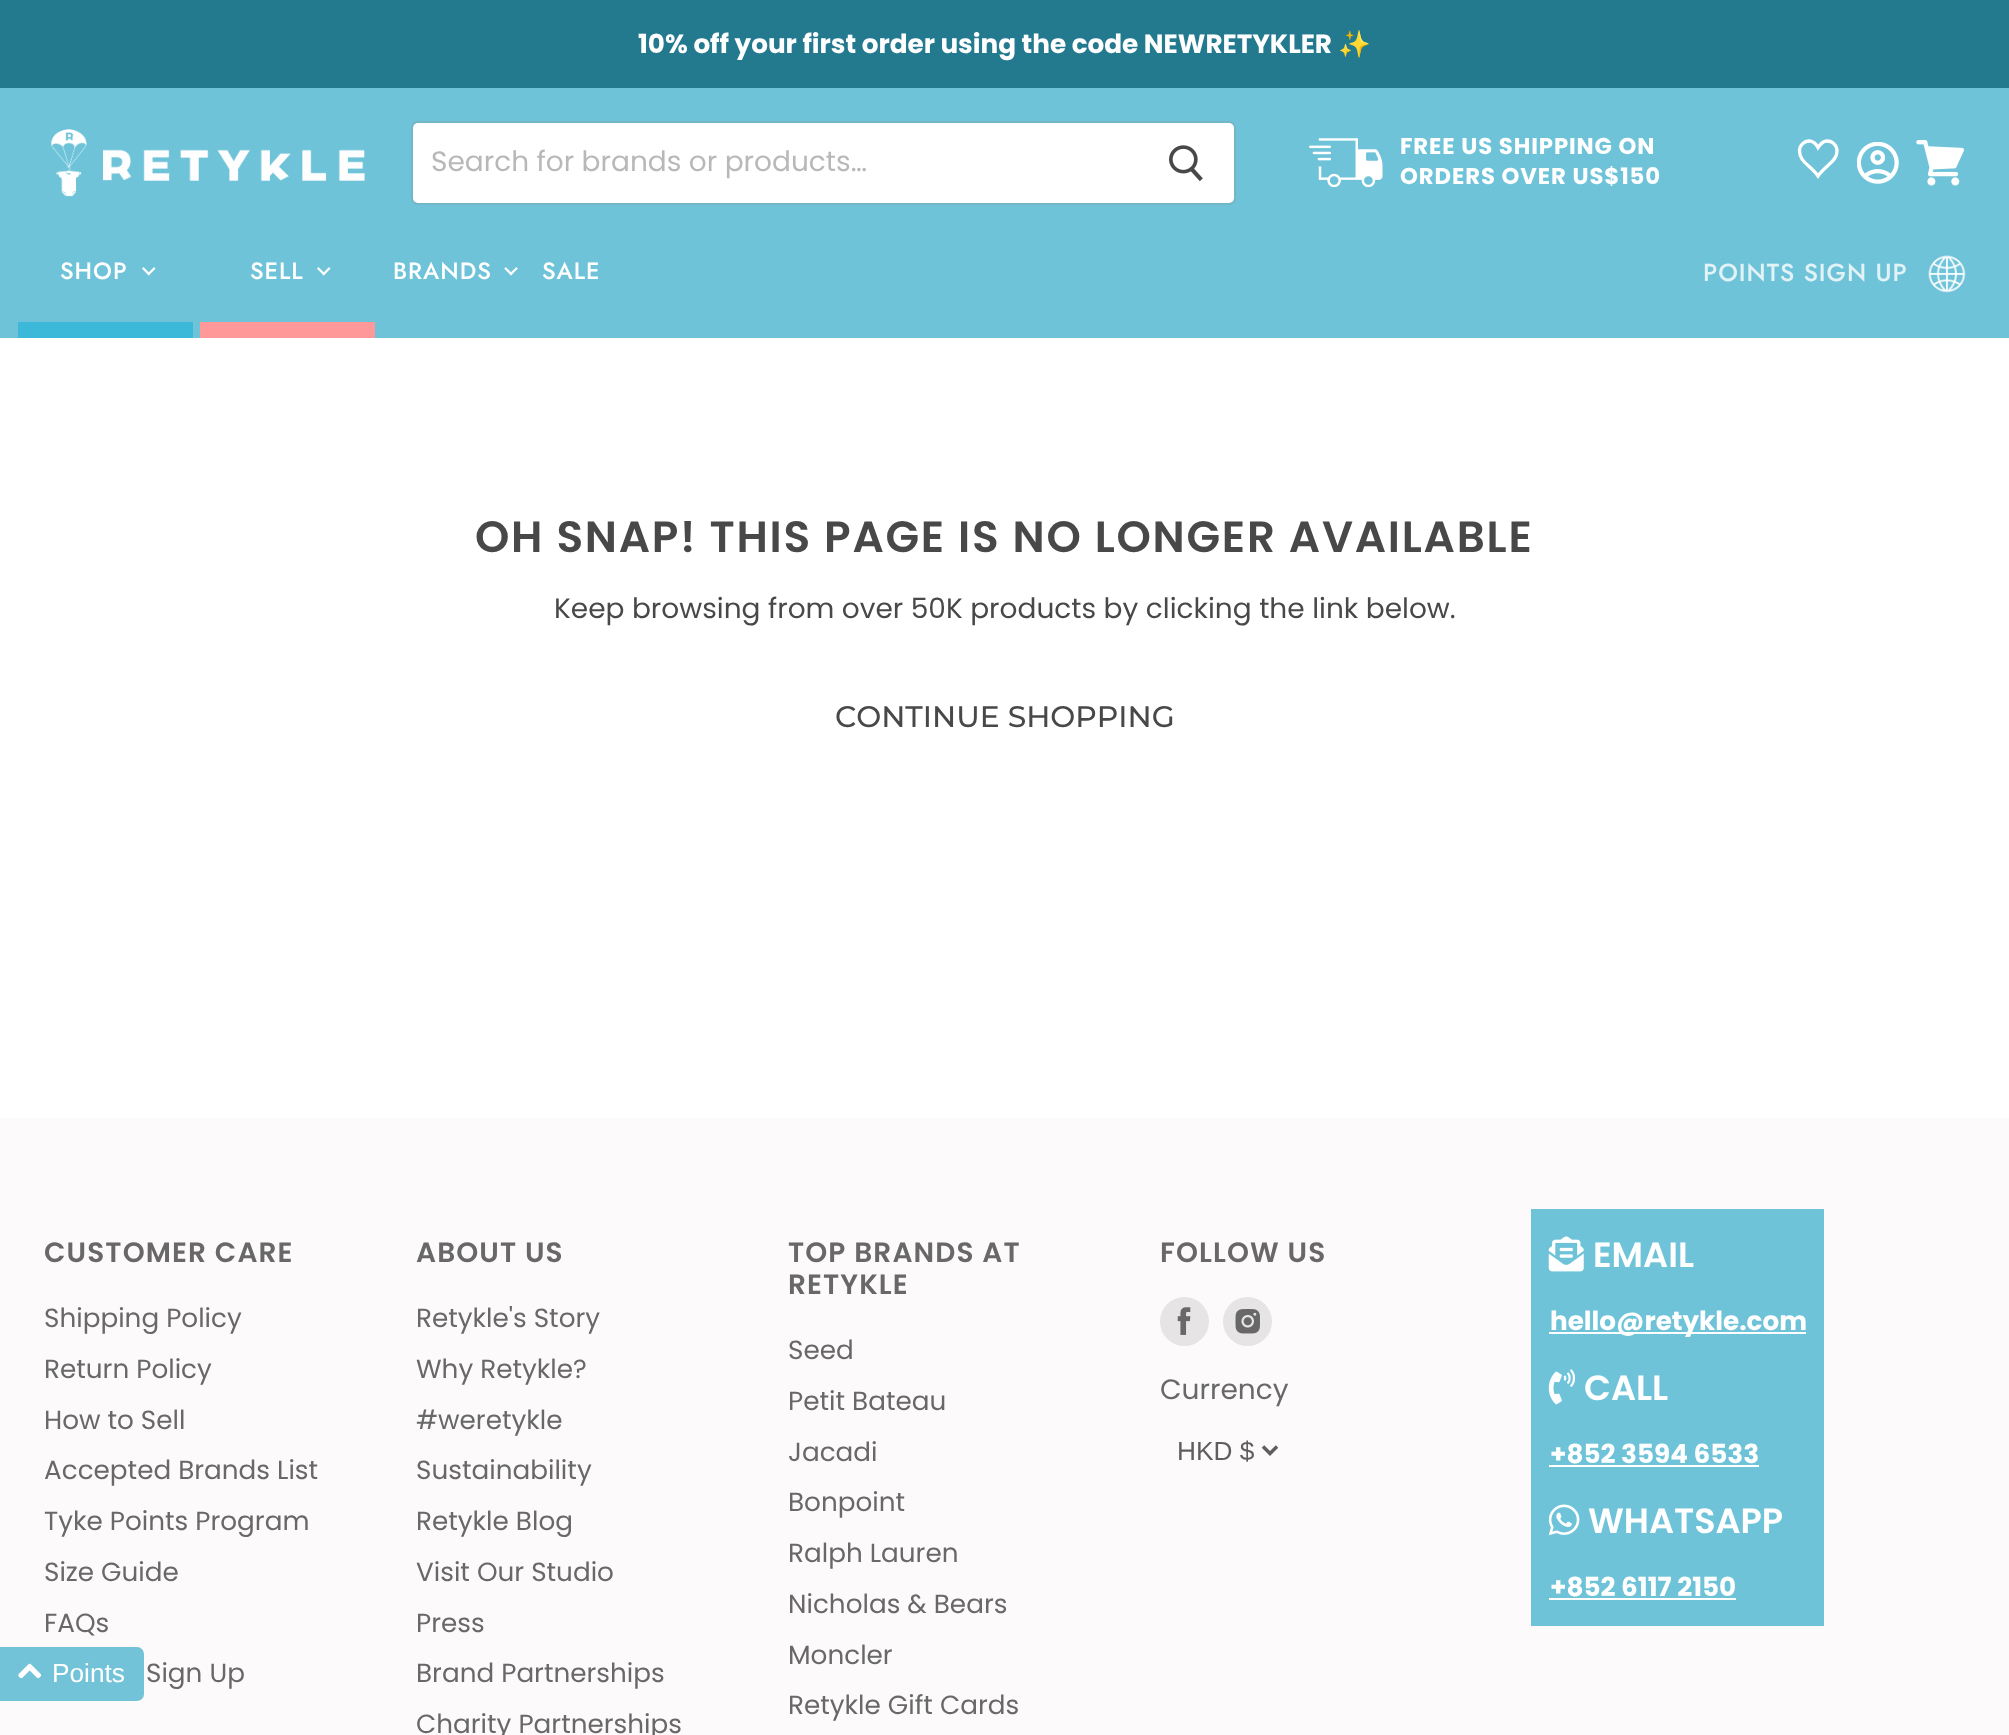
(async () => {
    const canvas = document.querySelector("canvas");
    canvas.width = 2009;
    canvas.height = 1735;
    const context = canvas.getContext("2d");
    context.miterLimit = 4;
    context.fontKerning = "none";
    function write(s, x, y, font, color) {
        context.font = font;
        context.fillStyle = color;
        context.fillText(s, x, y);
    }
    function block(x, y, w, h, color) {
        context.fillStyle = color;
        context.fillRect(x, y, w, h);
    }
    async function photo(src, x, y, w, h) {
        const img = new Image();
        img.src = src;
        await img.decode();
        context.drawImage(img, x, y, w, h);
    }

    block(0, 0, 2009, 1735, "rgb(255, 255, 255)");
    block(0, 0, 2009, 88, "rgb(35, 121, 142)");
    write("10% off your first order using the code NEWRETYKLER", 638, 53, "bold 26.25px Poppins", "rgb(255, 255, 255)");
    write("✨", 1338, 53, "bold 26.25px Noto Color Emoji", "rgb(255, 255, 255)");
    block(0, 88, 2009, 250, "rgb(111, 195, 217)");
    await photo("media/1.png", 51, 129, 314, 68);
    context.beginPath();
    context.roundRect(412, 122, 823, 82, 6);
    context.strokeStyle = "rgba(128, 128, 128, 0.2)";
    context.lineWidth = 2;
    context.stroke();
    context.fillStyle = "rgb(255, 255, 255)";
    context.beginPath();
    context.roundRect(413, 123, 726, 80, [5, 0, 0, 5]);
    context.fill();
    write("Search for brands or products…", 431, 171, "28px Poppins", "rgb(184, 184, 184)");
    context.fillStyle = "rgb(255, 255, 255)";
    context.beginPath();
    context.roundRect(1140, 124, 93, 78, [0, 4, 4, 0]);
    context.fill();
    context.strokeStyle = "rgb(255, 255, 255)";
    context.stroke();
    await photo("media/2.png", 1169, 145, 34, 37);
    await photo("media/3.png", 1309, 138, 74, 49);
    context.letterSpacing = "0.9px";
    write("FREE US SHIPPING ON", 1400, 154, "bold 22.75px Poppins", "rgb(255, 255, 255)");
    write("ORDERS OVER US$150", 1400, 184, "bold 22.75px Poppins", "rgb(255, 255, 255)");
    context.beginPath();
    context.moveTo(1827, 141);
    context.bezierCurveTo(1823.5, 141, 1820, 144.5, 1818, 147.5);
    context.bezierCurveTo(1816.5, 144.5, 1813, 141, 1809.5, 141);
    context.bezierCurveTo(1804, 141, 1799.5, 145.5, 1799.5, 151);
    context.bezierCurveTo(1799.5, 162, 1810.5, 165, 1818, 176);
    context.bezierCurveTo(1825.5, 165, 1837, 161.5, 1837, 151);
    context.bezierCurveTo(1837, 145.5, 1832.5, 141, 1827, 141);
    context.closePath();
    context.lineWidth = 3.3;
    context.stroke();
    await photo("media/4.png", 1857, 142, 42, 42);
    await photo("media/5.png", 1916, 140, 48, 46);
    block(18, 322, 175, 16, "rgb(60, 185, 217)");
    context.letterSpacing = "1px";
    write("SHOP", 60, 279, "500 23.5px Jost", "rgb(255, 255, 255)");
    await photo("media/6.png", 142, 267, 14, 9);
    block(200, 322, 175, 16, "rgb(255, 153, 153)");
    write("SELL", 250, 279, "500 23.5px Jost", "rgb(255, 255, 255)");
    await photo("media/6.png", 317, 267, 14, 9);
    write("BRANDS", 393, 279, "500 23.5px Jost", "rgb(255, 255, 255)");
    await photo("media/7.png", 504, 267, 14, 9);
    write("SALE", 542, 279, "500 23.5px Jost", "rgb(255, 255, 255)");
    write("POINTS SIGN UP", 1703, 281, "500 24.5px Jost", "rgb(226, 243, 247)");
    await photo("media/8.png", 1928, 255, 38, 38);
    context.letterSpacing = "1.75px";
    write("OH SNAP! THIS PAGE IS NO LONGER AVAILABLE", 475, 552, "600 43.75px Poppins", "rgb(72, 72, 72)");
    context.letterSpacing = "0px";
    write("Keep browsing from over 50K products by clicking the link below.", 554, 618, "28px Poppins", "rgb(72, 72, 72)");
    write("CONTINUE SHOPPING", 835, 727, "500 29.75px Montserrat", "rgb(72, 72, 72)");
    block(0, 1118, 2009, 617, "rgb(252, 250, 250)");
    context.letterSpacing = "1.1px";
    write("CUSTOMER CARE", 44, 1262, "600 28px Poppins", "rgb(104, 104, 104)");
    context.letterSpacing = "0px";
    write("Shipping Policy", 44, 1327, "26.25px Poppins", "rgb(104, 104, 104)");
    write("Return Policy", 44, 1378, "26.25px Poppins", "rgb(104, 104, 104)");
    write("How to Sell", 44, 1429, "26.25px Poppins", "rgb(104, 104, 104)");
    write("Accepted Brands List", 44, 1479, "26.25px Poppins", "rgb(104, 104, 104)");
    write("Tyke Points Program", 44, 1530, "26.25px Poppins", "rgb(104, 104, 104)");
    write("Size Guide", 44, 1581, "26.25px Poppins", "rgb(104, 104, 104)");
    write("FAQs", 44, 1632, "26.25px Poppins", "rgb(104, 104, 104)");
    write("Sign Up", 146, 1682, "26.25px Poppins", "rgb(104, 104, 104)");
    context.letterSpacing = "1.1px";
    write("ABOUT US", 416, 1262, "600 28px Poppins", "rgb(104, 104, 104)");
    context.letterSpacing = "0px";
    write("Retykle's Story", 416, 1327, "26.25px Poppins", "rgb(104, 104, 104)");
    write("Why Retykle?", 416, 1378, "26.25px Poppins", "rgb(104, 104, 104)");
    write("#weretykle", 416, 1429, "26.25px Poppins", "rgb(104, 104, 104)");
    write("Sustainability", 416, 1479, "26.25px Poppins", "rgb(104, 104, 104)");
    write("Retykle Blog", 416, 1530, "26.25px Poppins", "rgb(104, 104, 104)");
    write("Visit Our Studio", 416, 1581, "26.25px Poppins", "rgb(104, 104, 104)");
    write("Press", 416, 1632, "26.25px Poppins", "rgb(104, 104, 104)");
    write("Brand Partnerships", 416, 1682, "26.25px Poppins", "rgb(104, 104, 104)");
    write("Charity Partnerships", 416, 1733, "26.25px Poppins", "rgb(104, 104, 104)");
    context.letterSpacing = "1.1px";
    write("TOP BRANDS AT", 788, 1262, "600 28px Poppins", "rgb(104, 104, 104)");
    write("RETYKLE", 788, 1294, "600 28px Poppins", "rgb(104, 104, 104)");
    context.letterSpacing = "0px";
    write("Seed", 788, 1359, "26.25px Poppins", "rgb(104, 104, 104)");
    write("Petit Bateau", 788, 1410, "26.25px Poppins", "rgb(104, 104, 104)");
    write("Jacadi", 788, 1461, "26.25px Poppins", "rgb(104, 104, 104)");
    write("Bonpoint", 788, 1511, "26.25px Poppins", "rgb(104, 104, 104)");
    write("Ralph Lauren", 788, 1562, "26.25px Poppins", "rgb(104, 104, 104)");
    write("Nicholas & Bears", 788, 1613, "26.25px Poppins", "rgb(104, 104, 104)");
    write("Moncler", 788, 1664, "26.25px Poppins", "rgb(104, 104, 104)");
    write("Retykle Gift Cards", 788, 1714, "26.25px Poppins", "rgb(104, 104, 104)");
    context.letterSpacing = "1.1px";
    write("FOLLOW US", 1160, 1262, "600 28px Poppins", "rgb(104, 104, 104)");
    context.fillStyle = "rgb(230, 228, 228)";
    context.beginPath();
    context.arc(1184.5, 1321.5, 24.5, 0, Math.PI * 2);
    context.fill();
    await photo("media/9.png", 1177, 1307, 14, 28);
    context.beginPath();
    context.arc(1247.5, 1321.5, 24.5, 0, Math.PI * 2);
    context.fill();
    await photo("media/10.png", 1235, 1309, 25, 25);
    context.letterSpacing = "0px";
    write("Currency", 1160, 1399, "28px Poppins", "rgb(104, 104, 104)");
    context.beginPath();
    context.moveTo(1263, 1446.5);
    context.lineTo(1270, 1453.5);
    context.lineTo(1277, 1446.5);
    context.strokeStyle = "rgb(95, 94, 94)";
    context.lineWidth = 3.5;
    context.stroke();
    write("HKD $", 1177, 1460, "26.25px Liberation Sans", "rgb(95, 94, 94)");
    block(1531, 1209, 293, 417, "rgb(111, 195, 217)");
    await photo("media/11.png", 1548, 1236, 36, 36);
    write("EMAIL", 1593, 1267, "600 35px Poppins", "rgb(255, 255, 255)");
    block(1549, 1332, 257, 2, "rgb(255, 255, 255)");
    write("hello@retykle.com", 1550, 1330, "bold 26.25px Poppins", "rgb(255, 255, 255)");
    await photo("media/12.png", 1548, 1369, 28, 36);
    write("CALL", 1584, 1400, "600 35px Poppins", "rgb(255, 255, 255)");
    write("+852 3594 6533", 1550, 1463, "bold 26.25px Poppins", "rgb(255, 255, 255)");
    block(1549, 1465, 210, 2, "rgb(255, 255, 255)");
    await photo("media/13.png", 1548, 1504, 32, 32);
    write("WHATSAPP", 1588, 1533, "600 35px Poppins", "rgb(255, 255, 255)");
    write("+852 6117 2150", 1550, 1596, "bold 26.25px Poppins", "rgb(255, 255, 255)");
    block(1549, 1598, 187, 2, "rgb(255, 255, 255)");
    context.fillStyle = "rgb(115, 195, 216)";
    context.beginPath();
    context.roundRect(0, 1647, 144, 54, [0, 7, 7, 0]);
    context.fill();
    await photo("media/14.png", 18, 1663, 24, 16);
    write("Points", 52, 1682, "26.25px Liberation Sans", "rgb(255, 255, 255)");
})();
